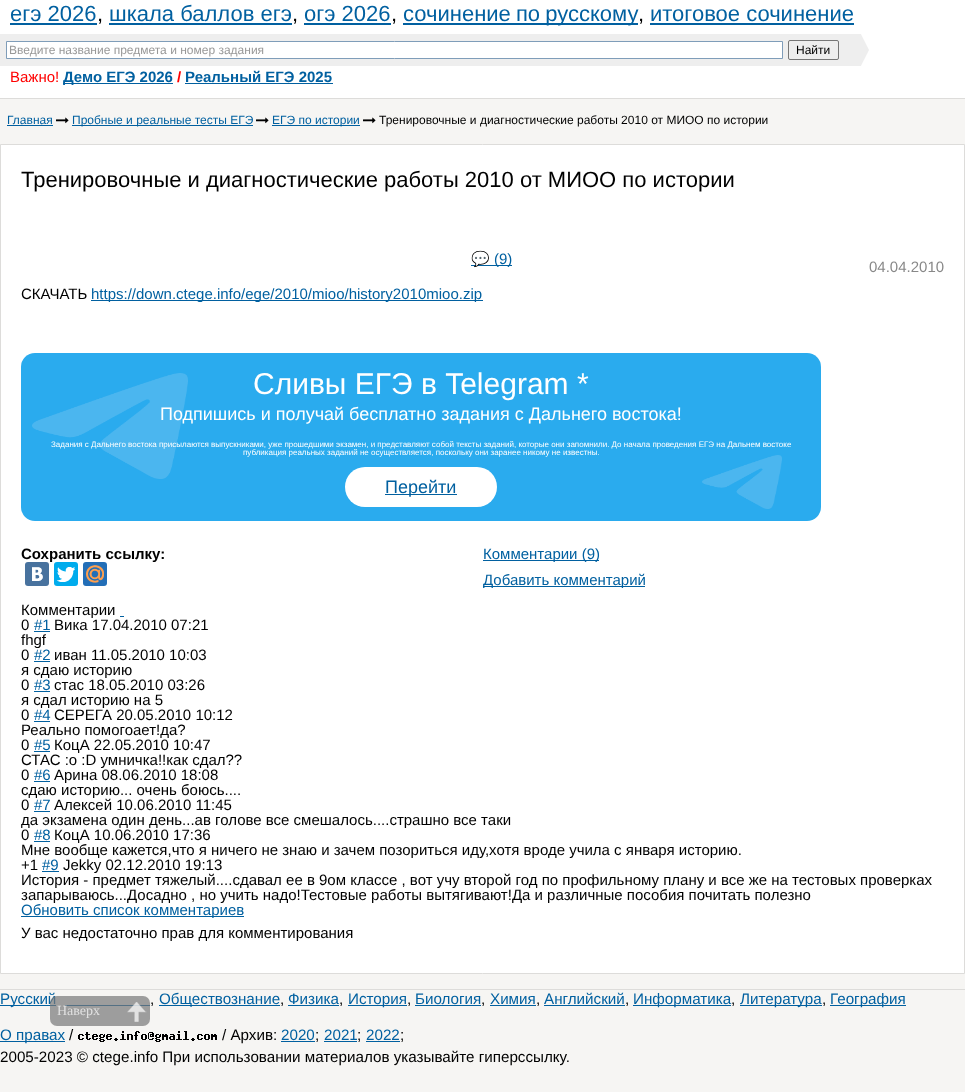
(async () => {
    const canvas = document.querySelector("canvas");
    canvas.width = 965;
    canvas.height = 1092;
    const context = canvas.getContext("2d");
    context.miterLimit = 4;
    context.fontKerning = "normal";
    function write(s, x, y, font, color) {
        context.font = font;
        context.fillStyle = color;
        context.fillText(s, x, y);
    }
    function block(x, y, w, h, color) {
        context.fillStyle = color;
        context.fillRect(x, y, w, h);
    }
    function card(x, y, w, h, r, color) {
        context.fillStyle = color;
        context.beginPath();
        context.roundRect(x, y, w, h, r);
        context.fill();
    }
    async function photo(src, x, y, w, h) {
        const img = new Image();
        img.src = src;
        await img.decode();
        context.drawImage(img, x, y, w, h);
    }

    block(0, 0, 965, 1092, "rgb(246, 245, 243)");
    block(0, 0, 965, 98, "rgb(255, 255, 255)");
    block(0, 98, 965, 1, "rgb(221, 220, 218)");
    write("егэ 2026", 10, 21, "22px Liberation Sans", "rgb(1, 96, 160)");
    block(10, 23, 87, 2, "rgb(1, 96, 160)");
    write(",", 97, 21, "22px Liberation Sans", "rgb(0, 0, 0)");
    write("шкала баллов егэ", 109, 21, "22px Liberation Sans", "rgb(1, 96, 160)");
    block(109, 23, 183, 2, "rgb(1, 96, 160)");
    write(",", 292, 21, "22px Liberation Sans", "rgb(0, 0, 0)");
    write("огэ 2026", 304, 21, "22px Liberation Sans", "rgb(1, 96, 160)");
    block(304, 23, 87, 2, "rgb(1, 96, 160)");
    write(",", 391, 21, "22px Liberation Sans", "rgb(0, 0, 0)");
    block(403, 23, 235, 2, "rgb(1, 96, 160)");
    context.wordSpacing = "-1px";
    write("сочинение по русскому", 403, 21, "22px Liberation Sans", "rgb(1, 96, 160)");
    context.wordSpacing = "0px";
    write(",", 638, 21, "22px Liberation Sans", "rgb(0, 0, 0)");
    write("итоговое сочинение", 650, 21, "22px Liberation Sans", "rgb(1, 96, 160)");
    block(650, 23, 204, 2, "rgb(1, 96, 160)");
    block(0, 34, 839, 32, "rgb(238, 238, 238)");
    context.fillStyle = "rgb(255, 255, 255)";
    context.beginPath();
    context.rect(6.5, 41.5, 776, 17);
    context.fill();
    context.strokeStyle = "rgb(127, 157, 185)";
    context.stroke();
    write("Введите название предмета и номер задания", 9, 54, "12px Liberation Sans", "rgb(153, 153, 153)");
    context.beginPath();
    context.roundRect(788.5, 40.5, 50, 19, 1.5);
    context.strokeStyle = "rgb(118, 118, 118)";
    context.stroke();
    write("Найти", 796, 54, "12px Liberation Sans", "rgb(0, 0, 0)");
    context.save();
    context.beginPath();
    context.rect(839, 34, 30, 32);
    context.clip();
    context.fillStyle = "rgb(238, 238, 238)";
    context.beginPath();
    context.moveTo(839, 109);
    context.lineTo(839, -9);
    context.lineTo(869, 50);
    context.closePath();
    context.fill();
    context.restore();
    write("Важно!", 10, 82, "15px Liberation Sans", "rgb(255, 0, 0)");
    block(63, 83, 110, 1, "rgb(1, 96, 160)");
    write("Демо ЕГЭ 2026", 63, 82, "bold 15px Liberation Sans", "rgb(1, 96, 160)");
    write("/", 177, 82, "bold 15px Liberation Sans", "rgb(255, 0, 0)");
    write("Реальный ЕГЭ 2025", 185, 82, "bold 15px Liberation Sans", "rgb(1, 96, 160)");
    block(185, 83, 148, 1, "rgb(1, 96, 160)");
    write("Главная", 7, 124, "12px Liberation Sans", "rgb(1, 96, 160)");
    block(7, 125, 46, 1, "rgb(1, 96, 160)");
    await photo("media/1.png", 56, 117, 13, 7);
    block(72, 125, 181, 1, "rgb(1, 96, 160)");
    write("Пробные и реальные тесты ЕГЭ", 72, 124, "12px Liberation Sans", "rgb(1, 96, 160)");
    await photo("media/1.png", 256, 117, 13, 7);
    block(272, 125, 88, 1, "rgb(1, 96, 160)");
    write("ЕГЭ по истории", 272, 124, "12px Liberation Sans", "rgb(1, 96, 160)");
    await photo("media/1.png", 363, 117, 13, 7);
    write("Тренировочные и диагностические работы 2010 от МИОО по истории", 379, 124, "12px Liberation Sans", "rgb(0, 0, 0)");
    context.fillStyle = "rgb(255, 255, 255)";
    context.beginPath();
    context.rect(0.5, 144.5, 964, 829);
    context.fill();
    context.strokeStyle = "rgb(221, 220, 218)";
    context.stroke();
    write("Тренировочные и диагностические работы 2010 от МИОО по истории", 21, 187, "22px Liberation Sans", "rgb(0, 0, 0)");
    block(471, 265, 41, 1, "rgb(1, 96, 160)");
    write("💬", 471, 264, "15px Noto Color Emoji", "rgb(1, 96, 160)");
    write("(9)", 494, 264, "15px Liberation Sans", "rgb(1, 96, 160)");
    write("04.04.2010", 869, 272, "15px Liberation Sans", "rgb(136, 136, 136)");
    write("СКАЧАТЬ", 21, 299, "15px Liberation Sans", "rgb(0, 0, 0)");
    block(91, 300, 392, 1, "rgb(1, 96, 160)");
    write("https://down.ctege.info/ege/2010/mioo/history2010mioo.zip", 91, 299, "15px Liberation Sans", "rgb(1, 96, 160)");
    card(21, 353, 800, 168, 14, "rgb(42, 171, 238)");
    await photo("media/2.png", 32, 373, 750, 136);
    write("Сливы ЕГЭ в Telegram *", 253, 394, "30px Liberation Sans", "rgb(255, 255, 255)");
    write("Подпишись и получай бесплатно задания с Дальнего востока!", 160, 420, "18px Liberation Sans", "rgb(255, 255, 255)");
    write("Задания с Дальнего востока присылаются выпускниками, уже прошедшими экзамен, и представляют собой тексты заданий, которые они запомнили. До начала проведения ЕГЭ на Дальнем востоке", 51, 447, "8px Liberation Sans", "rgb(255, 255, 255)");
    write("публикация реальных заданий не осуществляется, поскольку они заранее никому не известны.", 243, 455, "8px Liberation Sans", "rgb(255, 255, 255)");
    card(345, 467, 152, 40, 20, "rgb(255, 255, 255)");
    block(385, 494, 72, 1, "rgb(1, 96, 160)");
    write("Перейти", 385, 493, "18px Liberation Sans", "rgb(1, 96, 160)");
    write("Сохранить ссылку:", 21, 559, "bold 15px Liberation Sans", "rgb(0, 0, 0)");
    card(25, 562, 24, 24, 3, "rgb(72, 114, 158)");
    await photo("media/3.png", 32, 567, 11, 14);
    card(54, 562, 24, 24, 3, "rgb(0, 172, 237)");
    await photo("media/4.png", 57, 567, 18, 15);
    card(83, 562, 24, 24, 3, "rgb(34, 110, 183)");
    await photo("media/5.png", 86, 565, 18, 18);
    block(483, 560, 116, 1, "rgb(1, 96, 160)");
    write("Комментарии (9)", 483, 559, "15px Liberation Sans", "rgb(1, 96, 160)");
    block(483, 586, 162, 1, "rgb(1, 96, 160)");
    write("Добавить комментарий", 483, 585, "15px Liberation Sans", "rgb(1, 96, 160)");
    write("Комментарии", 21, 615, "15px Liberation Sans", "rgb(0, 0, 0)");
    block(120, 616, 4, 1, "rgb(1, 96, 160)");
    write("0", 21, 630, "15px Liberation Sans", "rgb(0, 0, 0)");
    write("#1", 34, 630, "15px Liberation Sans", "rgb(1, 96, 160)");
    block(34, 631, 16, 1, "rgb(1, 96, 160)");
    write("Вика 17.04.2010 07:21", 54, 630, "15px Liberation Sans", "rgb(0, 0, 0)");
    write("fhgf", 21, 645, "15px Liberation Sans", "rgb(0, 0, 0)");
    write("0", 21, 660, "15px Liberation Sans", "rgb(0, 0, 0)");
    write("#2", 34, 660, "15px Liberation Sans", "rgb(1, 96, 160)");
    block(34, 661, 16, 1, "rgb(1, 96, 160)");
    write("иван 11.05.2010 10:03", 54, 660, "15px Liberation Sans", "rgb(0, 0, 0)");
    write("я сдаю историю", 21, 675, "15px Liberation Sans", "rgb(0, 0, 0)");
    write("0", 21, 690, "15px Liberation Sans", "rgb(0, 0, 0)");
    write("#3", 34, 690, "15px Liberation Sans", "rgb(1, 96, 160)");
    block(34, 691, 16, 1, "rgb(1, 96, 160)");
    write("стас 18.05.2010 03:26", 54, 690, "15px Liberation Sans", "rgb(0, 0, 0)");
    write("я сдал историю на 5", 21, 705, "15px Liberation Sans", "rgb(0, 0, 0)");
    write("0", 21, 720, "15px Liberation Sans", "rgb(0, 0, 0)");
    write("#4", 34, 720, "15px Liberation Sans", "rgb(1, 96, 160)");
    block(34, 721, 16, 1, "rgb(1, 96, 160)");
    write("СЕРЕГА 20.05.2010 10:12", 54, 720, "15px Liberation Sans", "rgb(0, 0, 0)");
    write("Реально помогоает!да?", 21, 735, "15px Liberation Sans", "rgb(0, 0, 0)");
    write("0", 21, 750, "15px Liberation Sans", "rgb(0, 0, 0)");
    write("#5", 34, 750, "15px Liberation Sans", "rgb(1, 96, 160)");
    block(34, 751, 16, 1, "rgb(1, 96, 160)");
    write("КоцА 22.05.2010 10:47", 54, 750, "15px Liberation Sans", "rgb(0, 0, 0)");
    write("СТАС :o :D умничка!!как сдал??", 21, 765, "15px Liberation Sans", "rgb(0, 0, 0)");
    write("0", 21, 780, "15px Liberation Sans", "rgb(0, 0, 0)");
    write("#6", 34, 780, "15px Liberation Sans", "rgb(1, 96, 160)");
    block(34, 781, 16, 1, "rgb(1, 96, 160)");
    write("Арина 08.06.2010 18:08", 54, 780, "15px Liberation Sans", "rgb(0, 0, 0)");
    write("cдаю историю... очень боюсь....", 21, 795, "15px Liberation Sans", "rgb(0, 0, 0)");
    write("0", 21, 810, "15px Liberation Sans", "rgb(0, 0, 0)");
    write("#7", 34, 810, "15px Liberation Sans", "rgb(1, 96, 160)");
    block(34, 811, 16, 1, "rgb(1, 96, 160)");
    write("Алексей 10.06.2010 11:45", 54, 810, "15px Liberation Sans", "rgb(0, 0, 0)");
    write("да экзамена один день...ав голове все смешалось....страшно все таки", 21, 825, "15px Liberation Sans", "rgb(0, 0, 0)");
    write("0", 21, 840, "15px Liberation Sans", "rgb(0, 0, 0)");
    write("#8", 34, 840, "15px Liberation Sans", "rgb(1, 96, 160)");
    block(34, 841, 16, 1, "rgb(1, 96, 160)");
    write("КоцА 10.06.2010 17:36", 54, 840, "15px Liberation Sans", "rgb(0, 0, 0)");
    write("Мне вообще кажется,что я ничего не знаю и зачем позориться иду,хотя вроде учила с января историю.", 21, 855, "15px Liberation Sans", "rgb(0, 0, 0)");
    write("+1", 21, 870, "15px Liberation Sans", "rgb(0, 0, 0)");
    write("#9", 42, 870, "15px Liberation Sans", "rgb(1, 96, 160)");
    block(42, 871, 17, 1, "rgb(1, 96, 160)");
    write("Jekky 02.12.2010 19:13", 63, 870, "15px Liberation Sans", "rgb(0, 0, 0)");
    write("История - предмет тяжелый....сдавал ее в 9ом классе , вот учу второй год по профильному плану и все же на тестовых проверках", 21, 885, "15px Liberation Sans", "rgb(0, 0, 0)");
    write("запарываюсь...Досадно , но учить надо!Тестовые работы вытягивают!Да и различные пособия почитать полезно", 21, 900, "15px Liberation Sans", "rgb(0, 0, 0)");
    block(21, 916, 223, 1, "rgb(1, 96, 160)");
    write("Обновить список комментариев", 21, 915, "15px Liberation Sans", "rgb(1, 96, 160)");
    write("У вас недостаточно прав для комментирования", 21, 938, "15px Liberation Sans", "rgb(0, 0, 0)");
    block(0, 989, 965, 1, "rgb(221, 220, 218)");
    block(0, 1005, 56, 1, "rgb(1, 96, 160)");
    write("Русский", 0, 1004, "15.2px Liberation Sans", "rgb(1, 96, 160)");
    block(65, 1005, 85, 1, "rgb(1, 96, 160)");
    write(",", 150, 1004, "15.2px Liberation Sans", "rgb(0, 0, 0)");
    block(159, 1005, 121, 1, "rgb(1, 96, 160)");
    write("Обществознание", 159, 1004, "15.2px Liberation Sans", "rgb(1, 96, 160)");
    write(",", 280, 1004, "15.2px Liberation Sans", "rgb(0, 0, 0)");
    write("Физика", 288, 1004, "15.2px Liberation Sans", "rgb(1, 96, 160)");
    block(288, 1005, 51, 1, "rgb(1, 96, 160)");
    write(",", 339, 1004, "15.2px Liberation Sans", "rgb(0, 0, 0)");
    block(348, 1005, 59, 1, "rgb(1, 96, 160)");
    write("История", 348, 1004, "15.2px Liberation Sans", "rgb(1, 96, 160)");
    write(",", 407, 1004, "15.2px Liberation Sans", "rgb(0, 0, 0)");
    write("Биология", 415, 1004, "15.2px Liberation Sans", "rgb(1, 96, 160)");
    block(415, 1005, 66, 1, "rgb(1, 96, 160)");
    write(",", 481, 1004, "15.2px Liberation Sans", "rgb(0, 0, 0)");
    write("Химия", 490, 1004, "15.2px Liberation Sans", "rgb(1, 96, 160)");
    block(490, 1005, 46, 1, "rgb(1, 96, 160)");
    write(",", 536, 1004, "15.2px Liberation Sans", "rgb(0, 0, 0)");
    write("Английский", 544, 1004, "15.2px Liberation Sans", "rgb(1, 96, 160)");
    block(544, 1005, 81, 1, "rgb(1, 96, 160)");
    write(",", 625, 1004, "15.2px Liberation Sans", "rgb(0, 0, 0)");
    block(633, 1005, 98, 1, "rgb(1, 96, 160)");
    write("Информатика", 633, 1004, "15.2px Liberation Sans", "rgb(1, 96, 160)");
    write(",", 731, 1004, "15.2px Liberation Sans", "rgb(0, 0, 0)");
    block(740, 1005, 82, 1, "rgb(1, 96, 160)");
    write("Литература", 740, 1004, "15.2px Liberation Sans", "rgb(1, 96, 160)");
    write(",", 822, 1004, "15.2px Liberation Sans", "rgb(0, 0, 0)");
    block(830, 1005, 76, 1, "rgb(1, 96, 160)");
    write("География", 830, 1004, "15.2px Liberation Sans", "rgb(1, 96, 160)");
    block(0, 1041, 65, 1, "rgb(1, 96, 160)");
    write("О правах", 0, 1040, "15.2px Liberation Sans", "rgb(1, 96, 160)");
    write("/", 69, 1040, "15.2px Liberation Sans", "rgb(0, 0, 0)");
    await photo("media/6.png", 78, 1031, 139, 11);
    write("/ Архив:", 222, 1040, "15.2px Liberation Sans", "rgb(0, 0, 0)");
    write("2020", 281, 1040, "15.2px Liberation Sans", "rgb(1, 96, 160)");
    block(281, 1041, 34, 1, "rgb(1, 96, 160)");
    write(";", 315, 1040, "15.2px Liberation Sans", "rgb(0, 0, 0)");
    write("2021", 324, 1040, "15.2px Liberation Sans", "rgb(1, 96, 160)");
    block(324, 1041, 33, 1, "rgb(1, 96, 160)");
    write(";", 357, 1040, "15.2px Liberation Sans", "rgb(0, 0, 0)");
    write("2022", 366, 1040, "15.2px Liberation Sans", "rgb(1, 96, 160)");
    block(366, 1041, 34, 1, "rgb(1, 96, 160)");
    write(";", 400, 1040, "15.2px Liberation Sans", "rgb(0, 0, 0)");
    write("2005-2023 © ctege.info При использовании материалов указывайте гиперссылку.", 0, 1062, "15.2px Liberation Sans", "rgb(0, 0, 0)");
    card(50, 996, 100, 30, 7, "rgba(119, 119, 119, 0.7)");
    await photo("media/7.png", 127, 1002, 20, 20);
    write("Наверх", 57, 1015, "14px Liberation Serif", "rgb(225, 225, 225)");
})();
